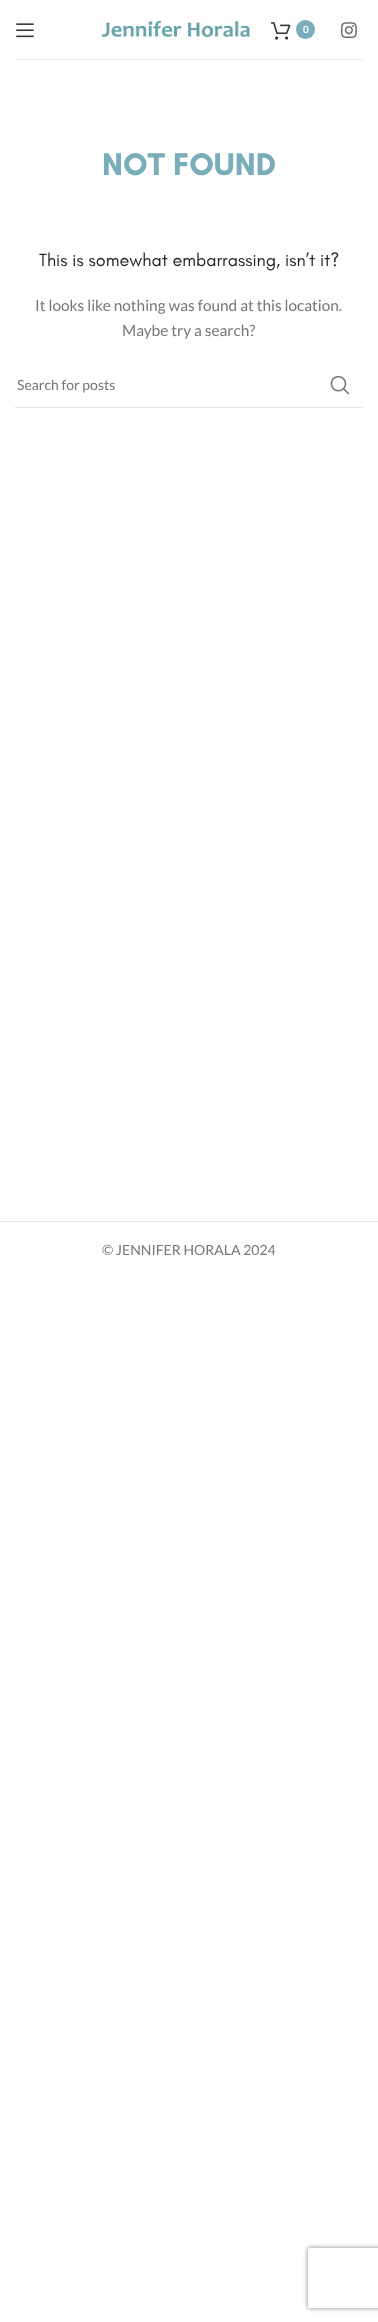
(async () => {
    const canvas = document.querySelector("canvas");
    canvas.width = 378;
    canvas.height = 2322;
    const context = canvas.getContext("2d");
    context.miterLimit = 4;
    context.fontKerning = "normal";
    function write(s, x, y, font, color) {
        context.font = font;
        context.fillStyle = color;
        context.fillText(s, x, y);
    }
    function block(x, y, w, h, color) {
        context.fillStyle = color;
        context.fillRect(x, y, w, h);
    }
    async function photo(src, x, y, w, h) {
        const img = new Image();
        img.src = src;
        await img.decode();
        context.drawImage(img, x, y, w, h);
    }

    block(0, 0, 378, 2322, "rgb(255, 255, 255)");
    block(15, 59, 348, 1, "rgb(230, 230, 230)");
    await photo("media/1.png", 16, 23, 18, 15);
    await photo("media/2.png", 101, 20, 149, 18);
    await photo("media/3.png", 271, 22, 20, 18);
    context.fillStyle = "rgb(121, 173, 186)";
    context.beginPath();
    context.arc(305.5, 29.5, 9.5, 0, Math.PI * 2);
    context.fill();
    write("0", 303, 33, "bold 10px Lato", "rgb(255, 255, 255)");
    await photo("media/4.png", 341, 22, 16, 16);
    write("NOT FOUND", 102, 175, "bold 32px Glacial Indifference", "rgb(121, 173, 186)");
    write("This is somewhat embarrassing, isn’t it?", 39, 266, "18px Glacial Indifference", "rgb(36, 36, 36)");
    write("It looks like nothing was found at this location.", 35, 311, "15.4px Lato", "rgb(118, 118, 118)");
    write("Maybe try a search?", 122, 336, "15.4px Lato", "rgb(118, 118, 118)");
    block(15, 407, 348, 1, "rgb(230, 230, 230)");
    write("Search for posts", 17, 390, "14px Lato", "rgb(118, 118, 118)");
    await photo("media/5.png", 330, 375, 20, 20);
    block(0, 1221, 378, 1, "rgb(228, 228, 228)");
    write("© JENNIFER HORALA 2024", 102, 1255, "14px Lato", "rgb(118, 118, 118)");
    context.save();
    context.beginPath();
    context.moveTo(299, 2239);
    context.lineTo(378, 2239);
    context.lineTo(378, 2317);
    context.lineTo(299, 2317);
    context.closePath();
    context.moveTo(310, 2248);
    context.lineTo(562, 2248);
    context.bezierCurveTo(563, 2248, 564, 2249, 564, 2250);
    context.lineTo(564, 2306);
    context.bezierCurveTo(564, 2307, 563, 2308, 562, 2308);
    context.lineTo(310, 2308);
    context.bezierCurveTo(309, 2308, 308, 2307, 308, 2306);
    context.lineTo(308, 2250);
    context.bezierCurveTo(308, 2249, 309, 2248, 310, 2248);
    context.closePath();
    context.clip("evenodd");
    context.fillStyle = "rgb(128, 128, 128)";
    context.filter = "blur(2.5px)";
    context.beginPath();
    context.roundRect(308, 2248, 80, 60, 2);
    context.fill();
    context.filter = "none";
    context.restore();
})();
